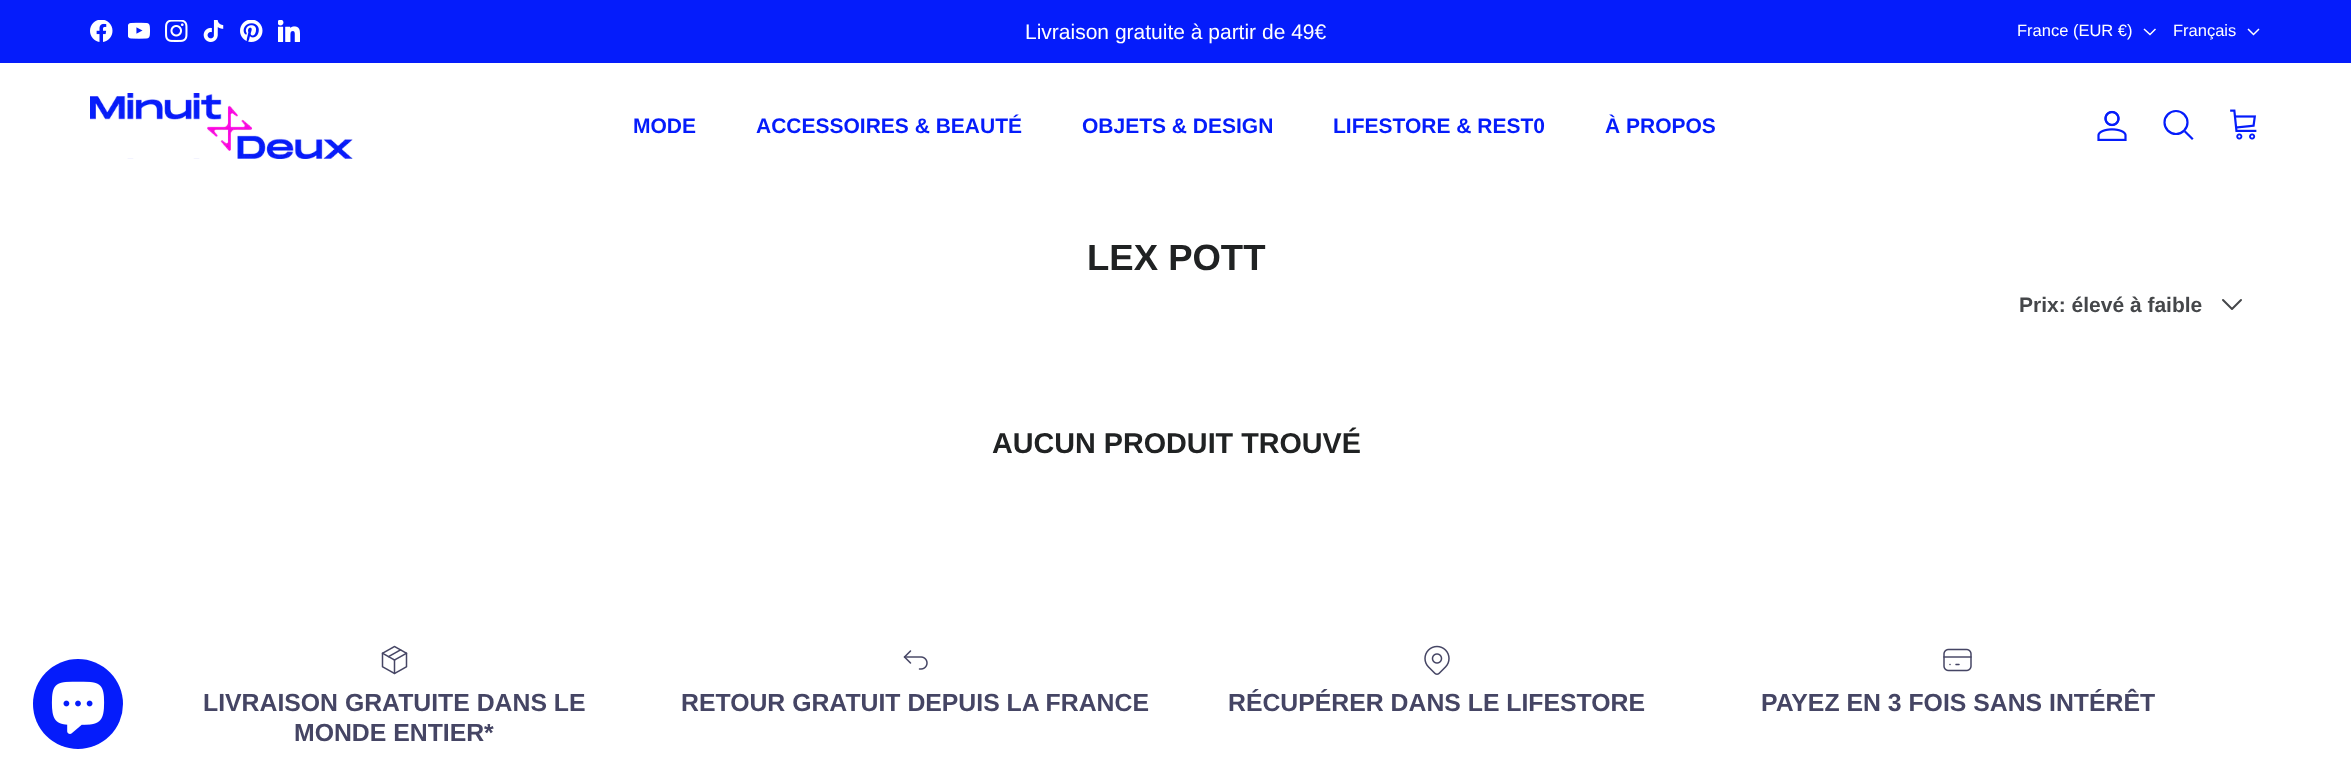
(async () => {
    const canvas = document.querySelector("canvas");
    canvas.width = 2351;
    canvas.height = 780;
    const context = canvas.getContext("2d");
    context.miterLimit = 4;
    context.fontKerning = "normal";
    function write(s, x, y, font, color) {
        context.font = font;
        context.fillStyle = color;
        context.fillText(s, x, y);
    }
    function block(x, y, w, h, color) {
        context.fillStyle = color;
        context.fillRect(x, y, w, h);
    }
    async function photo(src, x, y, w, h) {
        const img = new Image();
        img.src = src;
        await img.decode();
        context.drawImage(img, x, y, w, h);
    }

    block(0, 0, 2351, 780, "rgb(255, 255, 255)");
    block(0, 0, 2351, 63, "rgb(5, 28, 251)");
    await photo("media/1.png", 90, 20, 23, 22);
    await photo("media/2.png", 128, 22, 22, 17);
    await photo("media/3.png", 165, 20, 23, 22);
    await photo("media/4.png", 203, 20, 21, 22);
    await photo("media/5.png", 240, 20, 23, 22);
    await photo("media/6.png", 278, 20, 22, 22);
    write("Livraison gratuite à partir de 49€", 1025, 39, "21px Liberation Sans", "rgb(255, 255, 255)");
    write("France (EUR €)", 2017, 36, "16.5px Liberation Sans", "rgb(255, 255, 255)");
    context.beginPath();
    context.moveTo(2155.5, 29);
    context.lineTo(2150, 34.5);
    context.lineTo(2144, 29);
    context.strokeStyle = "rgb(255, 255, 255)";
    context.lineWidth = 1.5;
    context.stroke();
    write("Français", 2173, 36, "16.5px Liberation Sans", "rgb(255, 255, 255)");
    context.beginPath();
    context.moveTo(2259, 29);
    context.lineTo(2253.5, 34.5);
    context.lineTo(2248, 29);
    context.stroke();
    await photo("media/7.png", 90, 93, 263, 66);
    write("MODE", 633, 133, "bold 21px Liberation Sans", "rgb(5, 28, 251)");
    write("ACCESSOIRES & BEAUTÉ", 756, 133, "bold 21px Liberation Sans", "rgb(5, 28, 251)");
    write("OBJETS & DESIGN", 1082, 133, "bold 21px Liberation Sans", "rgb(5, 28, 251)");
    write("LIFESTORE & REST0", 1333, 133, "bold 21px Liberation Sans", "rgb(5, 28, 251)");
    write("À PROPOS", 1605, 133, "bold 21px Liberation Sans", "rgb(5, 28, 251)");
    await photo("media/8.png", 2097, 110, 30, 31);
    context.beginPath();
    context.arc(2176, 122.5, 11.5, 0, Math.PI * 2);
    context.strokeStyle = "rgb(5, 28, 251)";
    context.lineWidth = 2.2;
    context.stroke();
    context.beginPath();
    context.moveTo(2185.5, 132);
    context.lineTo(2192, 138.5);
    context.lineCap = "square";
    context.stroke();
    await photo("media/9.png", 2230, 109, 27, 31);
    write("LEX POTT", 1087, 270, "bold 36.5px Liberation Sans", "rgb(32, 34, 35)");
    write("Prix: élevé à faible", 2019, 312, "bold 21px Liberation Sans", "rgb(69, 71, 74)");
    context.beginPath();
    context.moveTo(2223, 300);
    context.lineTo(2232, 309);
    context.lineTo(2241, 300);
    context.strokeStyle = "rgb(69, 71, 74)";
    context.lineWidth = 2;
    context.lineCap = "round";
    context.lineJoin = "round";
    context.stroke();
    write("AUCUN PRODUIT TROUVÉ", 992, 453, "bold 28.75px Liberation Sans", "rgb(32, 34, 35)");
    context.fillStyle = "rgb(5, 28, 251)";
    context.beginPath();
    context.arc(78, 704, 45, 0, Math.PI * 2);
    context.fill();
    await photo("media/10.png", 51, 681, 54, 53);
    await photo("media/11.png", 381, 645, 27, 30);
    write("LIVRAISON GRATUITE DANS LE", 203, 711, "bold 24.8px Liberation Sans", "rgb(69, 69, 100)");
    write("MONDE ENTIER*", 294, 741, "bold 24.8px Liberation Sans", "rgb(69, 69, 100)");
    await photo("media/12.png", 903, 650, 25, 20);
    write("RETOUR GRATUIT DEPUIS LA FRANCE", 681, 711, "bold 24.8px Liberation Sans", "rgb(69, 69, 100)");
    await photo("media/13.png", 1424, 645, 26, 30);
    write("RÉCUPÉRER DANS LE LIFESTORE", 1228, 711, "bold 24.8px Liberation Sans", "rgb(69, 69, 100)");
    await photo("media/14.png", 1943, 648, 29, 24);
    write("PAYEZ EN 3 FOIS SANS INTÉRÊT", 1761, 711, "bold 24.8px Liberation Sans", "rgb(69, 69, 100)");
})();
